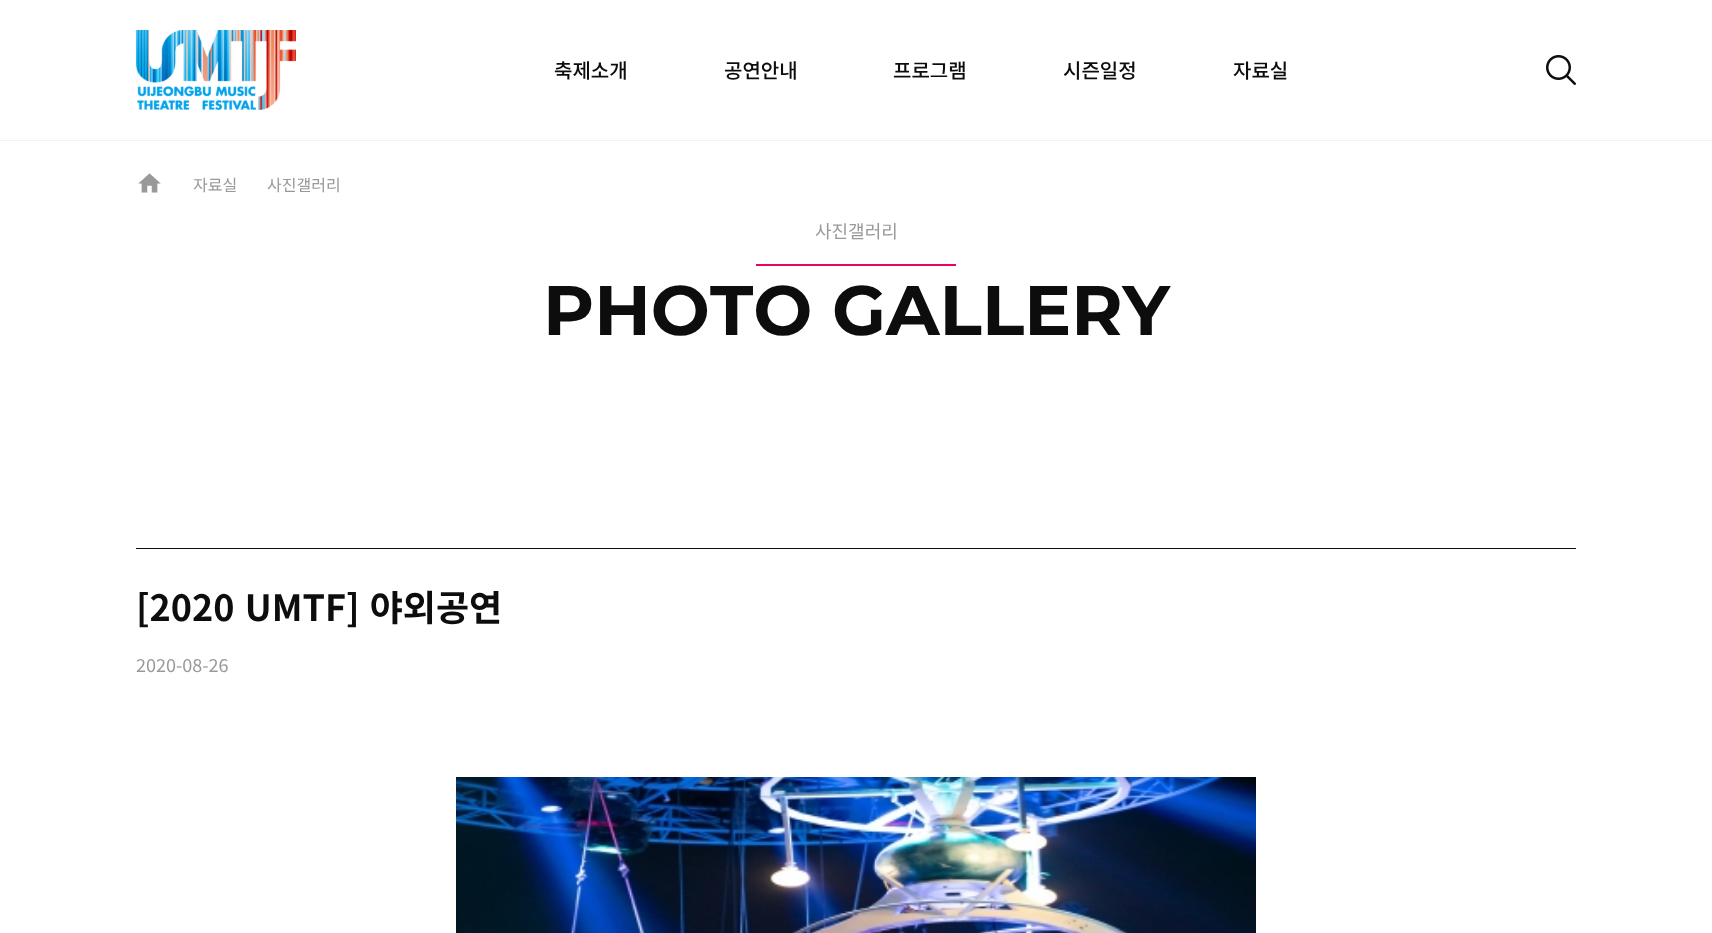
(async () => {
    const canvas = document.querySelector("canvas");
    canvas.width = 1712;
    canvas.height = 933;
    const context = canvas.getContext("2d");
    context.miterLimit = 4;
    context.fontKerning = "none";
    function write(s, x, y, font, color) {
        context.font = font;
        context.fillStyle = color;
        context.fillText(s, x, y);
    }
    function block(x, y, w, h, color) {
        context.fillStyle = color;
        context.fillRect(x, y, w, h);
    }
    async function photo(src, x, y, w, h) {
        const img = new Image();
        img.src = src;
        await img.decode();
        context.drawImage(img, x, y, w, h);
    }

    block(0, 0, 1712, 933, "rgb(255, 255, 255)");
    block(0, 140, 1712, 1, "rgb(242, 242, 242)");
    await photo("media/1.png", 136, 30, 160, 80);
    write("축제소개", 554, 78, "500 20px Noto Sans KR", "rgb(13, 13, 13)");
    write("공연안내", 724, 78, "500 20px Noto Sans KR", "rgb(13, 13, 13)");
    write("프로그램", 893, 78, "500 20px Noto Sans KR", "rgb(13, 13, 13)");
    write("시즌일정", 1063, 78, "500 20px Noto Sans KR", "rgb(13, 13, 13)");
    write("자료실", 1233, 78, "500 20px Noto Sans KR", "rgb(13, 13, 13)");
    await photo("media/2.png", 1546, 55, 30, 30);
    await photo("media/3.png", 138, 173, 23, 20);
    write("자료실", 193, 191, "16px Noto Sans KR", "rgb(153, 153, 153)");
    write("사진갤러리", 267, 191, "16px Noto Sans KR", "rgb(153, 153, 153)");
    write("사진갤러리", 815, 238, "18px Noto Sans KR", "rgb(153, 153, 153)");
    block(756, 264, 200, 2, "rgb(230, 5, 99)");
    write("PHOTO GALLERY", 543, 335, "bold 70px Montserrat", "rgb(13, 13, 13)");
    block(136, 548, 1440, 1, "rgb(13, 13, 13)");
    context.wordSpacing = "2px";
    write("[2020 UMTF] 야외공연", 136, 621, "bold 36px Noto Sans KR", "rgb(13, 13, 13)");
    context.wordSpacing = "0px";
    write("2020-08-26", 136, 672, "18px Noto Sans KR", "rgb(153, 153, 153)");
    await photo("media/4.png", 456, 777, 800, 156);
})();
